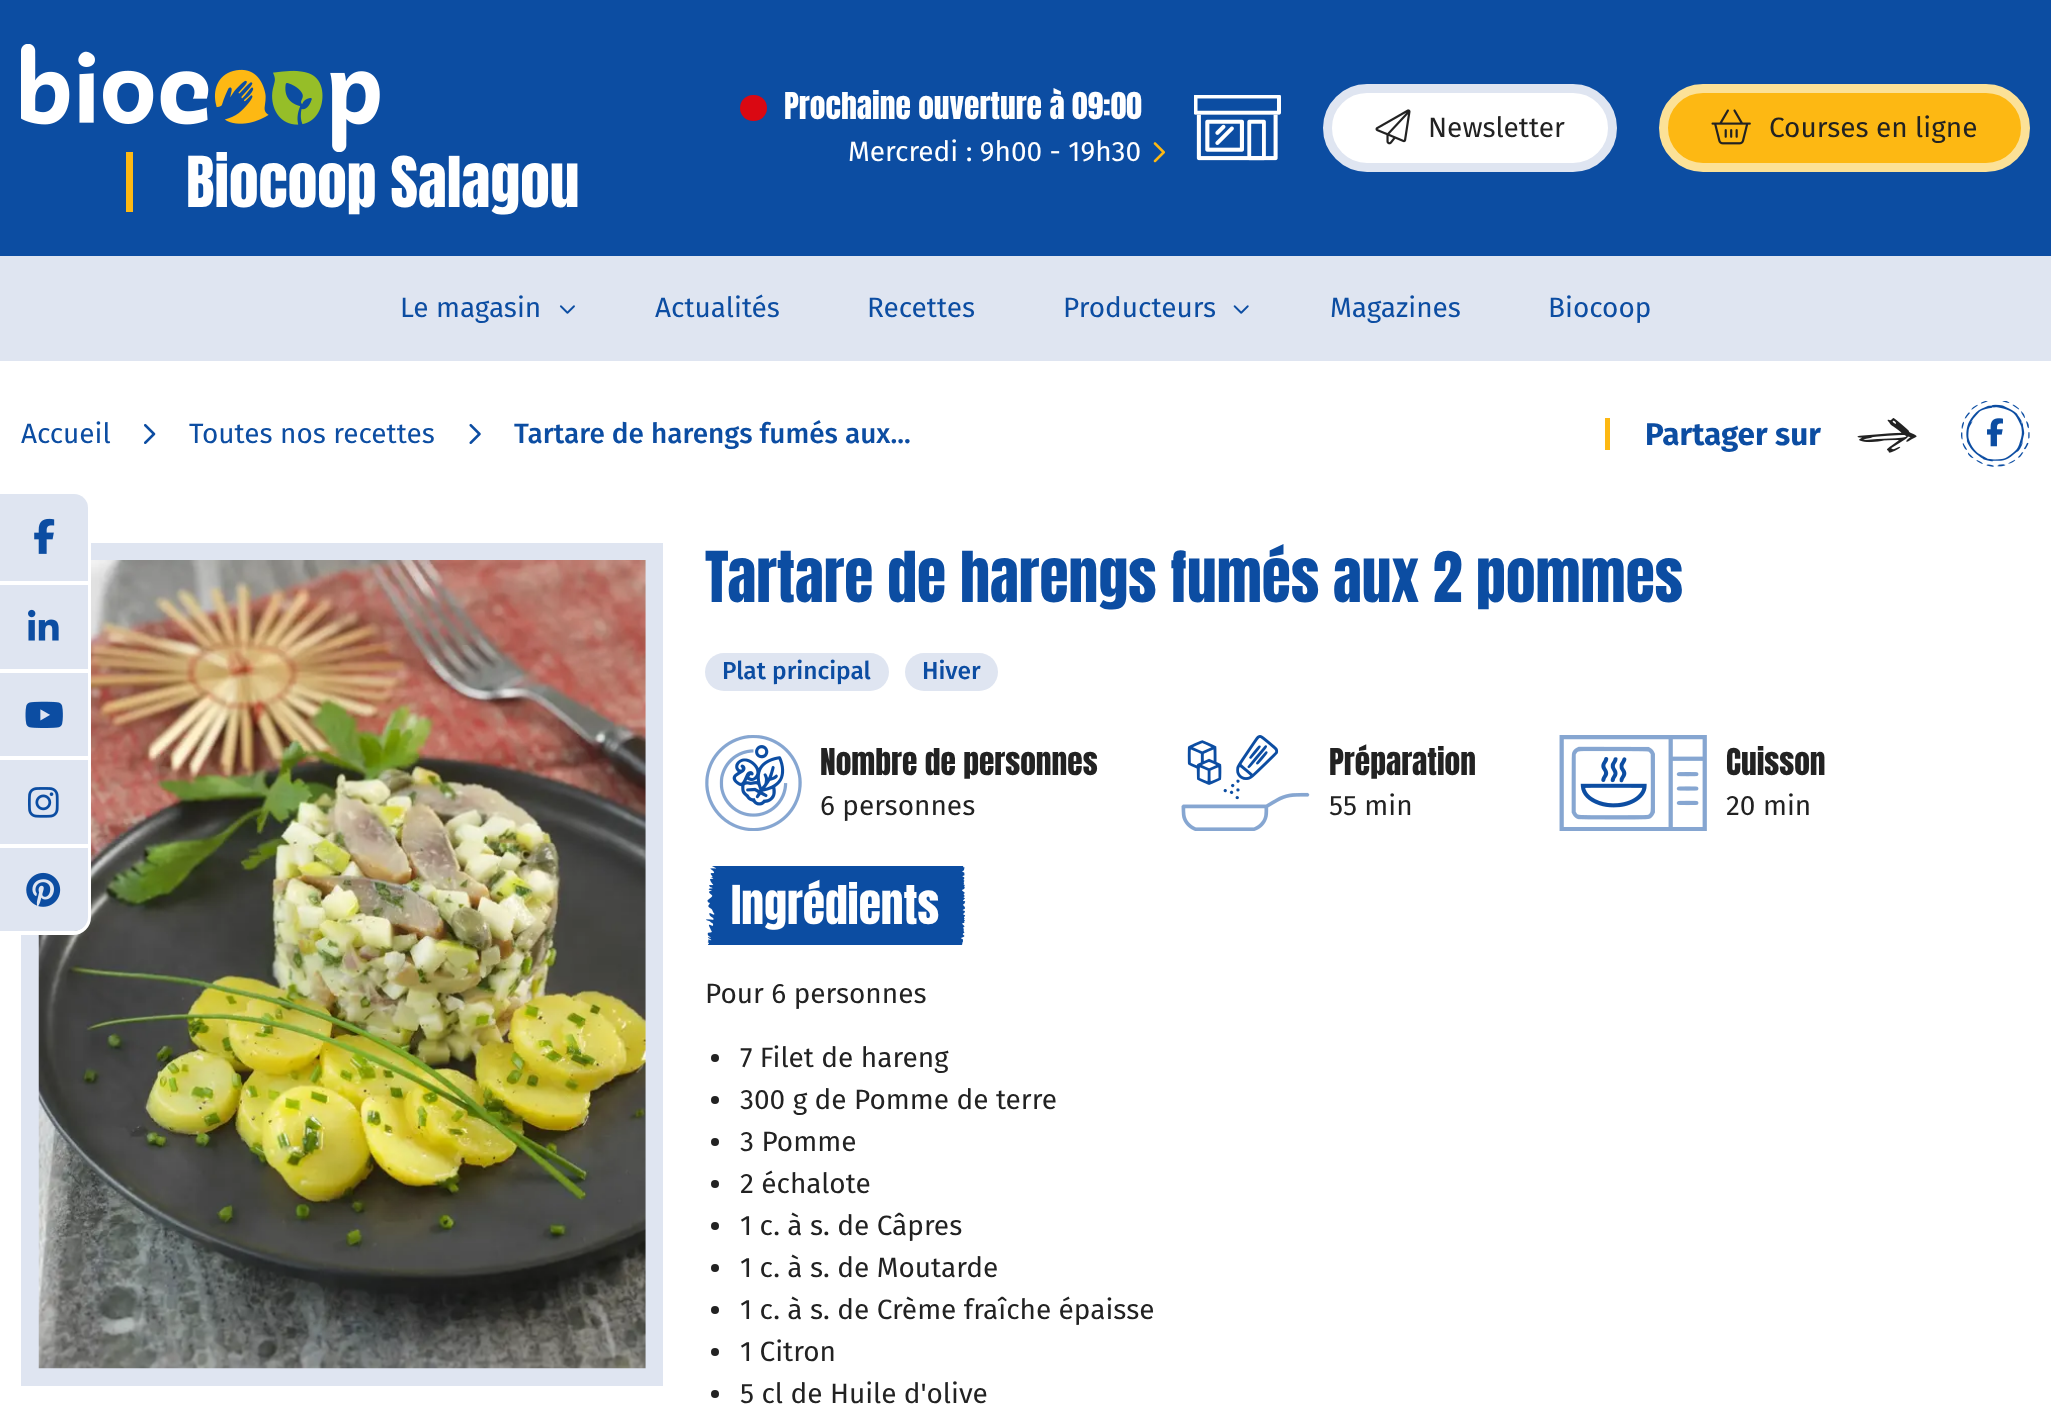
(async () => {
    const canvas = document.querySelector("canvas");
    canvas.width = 2051;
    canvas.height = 1423;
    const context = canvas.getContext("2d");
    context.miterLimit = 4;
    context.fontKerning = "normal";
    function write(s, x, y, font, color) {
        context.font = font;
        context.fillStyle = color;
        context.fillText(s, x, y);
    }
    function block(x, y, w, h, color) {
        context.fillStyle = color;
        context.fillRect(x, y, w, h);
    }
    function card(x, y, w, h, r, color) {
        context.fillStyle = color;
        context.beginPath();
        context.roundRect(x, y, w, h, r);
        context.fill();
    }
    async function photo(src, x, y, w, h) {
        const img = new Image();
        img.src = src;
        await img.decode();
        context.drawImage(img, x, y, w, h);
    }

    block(0, 0, 2051, 1423, "rgb(255, 255, 255)");
    block(0, 0, 2051, 256, "rgb(12, 77, 162)");
    card(740, 95, 27, 26, 13, "rgb(218, 8, 18)");
    write("Prochaine ouverture à 09:00", 784, 119, "31.5px Anton", "rgb(255, 255, 255)");
    await photo("media/1.png", 1194, 95, 87, 66);
    write("Mercredi : 9h00 - 19h30", 848, 161, "28px Fira Sans", "rgb(255, 255, 255)");
    await photo("media/2.png", 1153, 142, 12, 21);
    context.beginPath();
    context.roundRect(1327.5, 88.5, 285, 79, 39.5);
    context.fill();
    context.strokeStyle = "rgb(223, 229, 241)";
    context.lineWidth = 9;
    context.stroke();
    await photo("media/3.png", 1375, 109, 36, 36);
    write("Newsletter", 1428, 137, "28px Fira Sans", "rgb(34, 34, 34)");
    context.fillStyle = "rgb(253, 184, 19)";
    context.beginPath();
    context.roundRect(1663.5, 88.5, 362, 79, 39.5);
    context.fill();
    context.strokeStyle = "rgb(252, 225, 151)";
    context.stroke();
    await photo("media/4.png", 1711, 109, 40, 36);
    write("Courses en ligne", 1769, 137, "28px Fira Sans", "rgb(34, 34, 34)");
    await photo("media/5.png", 21, 44, 359, 108);
    block(126, 152, 7, 60, "rgb(253, 184, 19)");
    write("Biocoop Salagou", 186, 207, "59.5px Anton", "rgb(255, 255, 255)");
    block(0, 256, 2051, 105, "rgb(223, 229, 241)");
    write("Le magasin", 400, 317, "28px Fira Sans", "rgb(12, 77, 162)");
    await photo("media/6.png", 559, 305, 16, 9);
    write("Actualités", 655, 317, "28px Fira Sans", "rgb(12, 77, 162)");
    write("Recettes", 867, 317, "28px Fira Sans", "rgb(12, 77, 162)");
    write("Producteurs", 1063, 317, "28px Fira Sans", "rgb(12, 77, 162)");
    await photo("media/7.png", 1233, 305, 16, 9);
    write("Magazines", 1330, 317, "28px Fira Sans", "rgb(12, 77, 162)");
    write("Biocoop", 1548, 317, "28px Fira Sans", "rgb(12, 77, 162)");
    write("Accueil", 21, 443, "28px Fira Sans", "rgb(12, 77, 162)");
    await photo("media/8.png", 144, 423, 12, 21);
    write("Toutes nos recettes", 189, 443, "28px Fira Sans", "rgb(12, 77, 162)");
    await photo("media/9.png", 469, 423, 12, 21);
    write("Tartare de harengs fumés aux...", 514, 443, "500 28px Fira Sans", "rgb(12, 77, 162)");
    block(1605, 418, 5, 32, "rgb(253, 184, 19)");
    write("Partager sur", 1645, 445, "bold 31.5px Fira Sans", "rgb(12, 77, 162)");
    await photo("media/10.png", 1857, 418, 60, 35);
    await photo("media/11.png", 1961, 401, 69, 66);
    await photo("media/12.png", 1987, 418, 16, 29);
    context.beginPath();
    context.rect(30, 552, 624, 825);
    context.strokeStyle = "rgb(223, 229, 241)";
    context.lineWidth = 18;
    context.stroke();
    await photo("media/13.png", 38, 560, 608, 809);
    write("Tartare de harengs fumés aux 2 pommes", 705, 602, "59.5px Anton", "rgb(12, 77, 162)");
    card(705, 653, 184, 38, 19, "rgb(223, 229, 241)");
    write("Plat principal", 722, 679, "500 24.5px Fira Sans", "rgb(12, 77, 162)");
    card(905, 653, 93, 38, 19, "rgb(223, 229, 241)");
    write("Hiver", 922, 679, "500 24.5px Fira Sans", "rgb(12, 77, 162)");
    await photo("media/14.png", 705, 735, 97, 96);
    write("Nombre de personnes", 820, 775, "31.5px Anton", "rgb(34, 34, 34)");
    write("6 personnes", 820, 815, "28px Fira Sans", "rgb(34, 34, 34)");
    await photo("media/15.png", 1181, 735, 129, 96);
    write("Préparation", 1329, 775, "31.5px Anton", "rgb(34, 34, 34)");
    write("55 min", 1329, 815, "28px Fira Sans", "rgb(34, 34, 34)");
    await photo("media/16.png", 1559, 735, 148, 96);
    write("Cuisson", 1726, 775, "31.5px Anton", "rgb(34, 34, 34)");
    write("20 min", 1726, 815, "28px Fira Sans", "rgb(34, 34, 34)");
    await photo("media/17.png", 706, 866, 260, 79);
    write("Ingrédients", 731, 924, "45.5px Anton", "rgb(255, 255, 255)");
    write("Pour 6 personnes", 705, 1003, "28px Fira Sans", "rgb(34, 34, 34)");
    context.beginPath();
    context.arc(715, 1058, 4, 0, Math.PI * 2);
    context.fill();
    write("7 Filet de hareng", 740, 1067, "28px Fira Sans", "rgb(34, 34, 34)");
    context.beginPath();
    context.arc(715, 1100, 4, 0, Math.PI * 2);
    context.fill();
    write("300 g de Pomme de terre", 740, 1109, "28px Fira Sans", "rgb(34, 34, 34)");
    context.beginPath();
    context.arc(715, 1142, 4, 0, Math.PI * 2);
    context.fill();
    write("3 Pomme", 740, 1151, "28px Fira Sans", "rgb(34, 34, 34)");
    context.beginPath();
    context.arc(715, 1184, 4, 0, Math.PI * 2);
    context.fill();
    write("2 échalote", 740, 1193, "28px Fira Sans", "rgb(34, 34, 34)");
    context.beginPath();
    context.arc(715, 1226, 4, 0, Math.PI * 2);
    context.fill();
    write("1 c. à s. de Câpres", 740, 1235, "28px Fira Sans", "rgb(34, 34, 34)");
    context.beginPath();
    context.arc(715, 1268, 4, 0, Math.PI * 2);
    context.fill();
    write("1 c. à s. de Moutarde", 740, 1277, "28px Fira Sans", "rgb(34, 34, 34)");
    context.beginPath();
    context.arc(715, 1310, 4, 0, Math.PI * 2);
    context.fill();
    write("1 c. à s. de Crème fraîche épaisse", 740, 1319, "28px Fira Sans", "rgb(34, 34, 34)");
    context.beginPath();
    context.arc(715, 1352, 4, 0, Math.PI * 2);
    context.fill();
    write("1 Citron", 740, 1361, "28px Fira Sans", "rgb(34, 34, 34)");
    context.beginPath();
    context.arc(715, 1394, 4, 0, Math.PI * 2);
    context.fill();
    write("5 cl de Huile d'olive", 740, 1403, "28px Fira Sans", "rgb(34, 34, 34)");
    context.beginPath();
    context.moveTo(-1, 492);
    context.lineTo(73, 492);
    context.bezierCurveTo(82, 492, 89, 499, 89, 508);
    context.lineTo(89, 917);
    context.bezierCurveTo(89, 926, 82, 933, 73, 933);
    context.lineTo(-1, 933);
    context.closePath();
    context.strokeStyle = "rgb(255, 255, 255)";
    context.lineWidth = 4;
    context.stroke();
    context.fillStyle = "rgb(223, 229, 241)";
    context.beginPath();
    context.roundRect(0, 494, 88, 87, [0, 14, 0, 0]);
    context.fill();
    await photo("media/18.png", 34, 518, 21, 36);
    block(0, 585, 88, 84, "rgb(223, 229, 241)");
    block(21, 581, 67, 4, "rgb(255, 255, 255)");
    await photo("media/19.png", 28, 609, 31, 32);
    block(0, 673, 88, 83, "rgb(223, 229, 241)");
    block(21, 669, 67, 4, "rgb(255, 255, 255)");
    await photo("media/20.png", 25, 701, 38, 27);
    block(0, 760, 88, 84, "rgb(223, 229, 241)");
    block(21, 756, 67, 4, "rgb(255, 255, 255)");
    await photo("media/21.png", 28, 787, 31, 31);
    context.fillStyle = "rgb(223, 229, 241)";
    context.beginPath();
    context.roundRect(0, 847, 88, 84, [0, 0, 14, 0]);
    context.fill();
    block(0, 844, 88, 4, "rgb(255, 255, 255)");
    await photo("media/22.png", 26, 872, 35, 35);
})();
